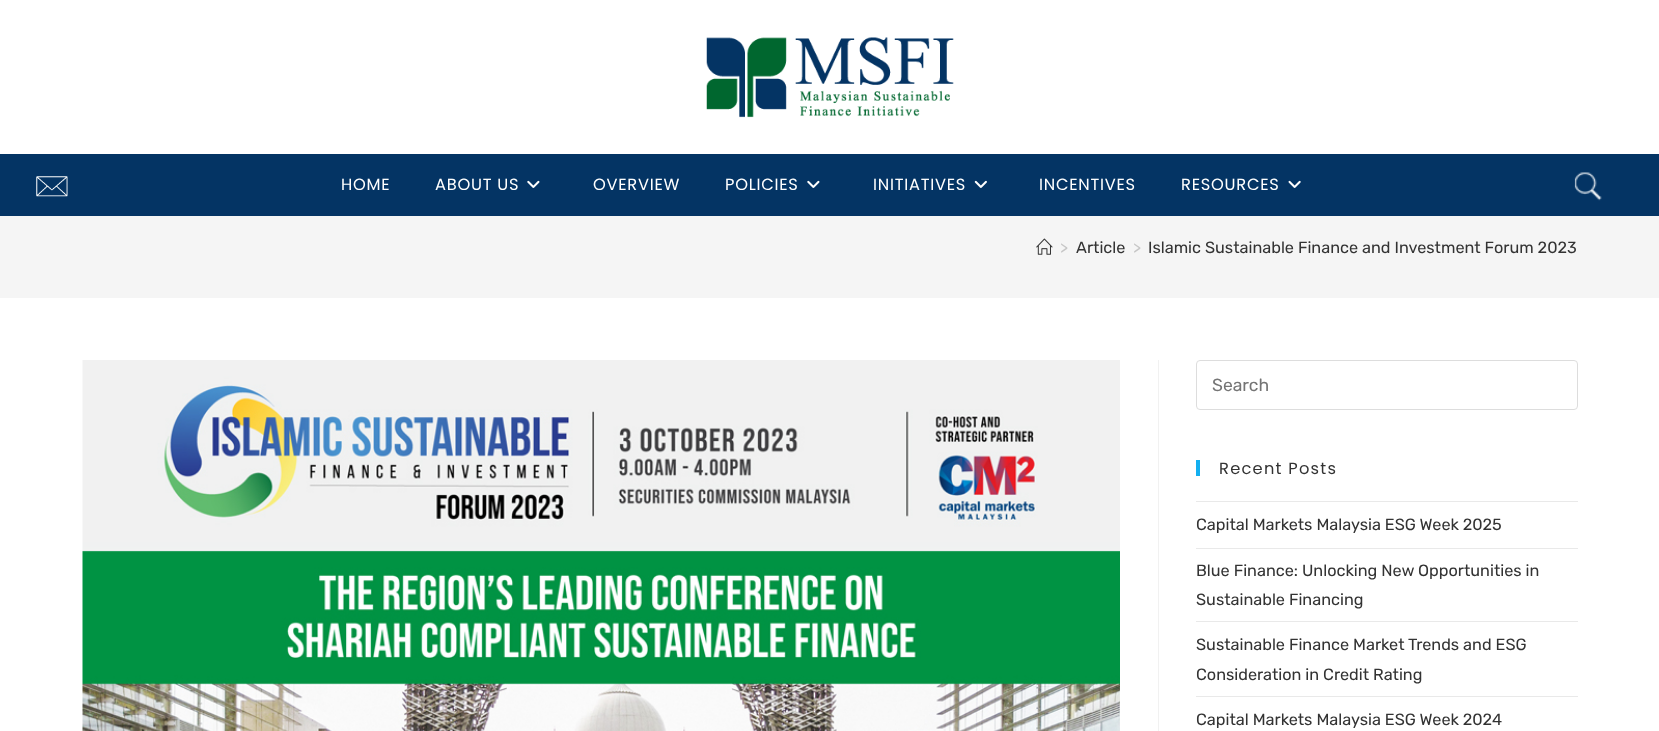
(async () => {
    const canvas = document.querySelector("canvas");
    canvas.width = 1659;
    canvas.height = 731;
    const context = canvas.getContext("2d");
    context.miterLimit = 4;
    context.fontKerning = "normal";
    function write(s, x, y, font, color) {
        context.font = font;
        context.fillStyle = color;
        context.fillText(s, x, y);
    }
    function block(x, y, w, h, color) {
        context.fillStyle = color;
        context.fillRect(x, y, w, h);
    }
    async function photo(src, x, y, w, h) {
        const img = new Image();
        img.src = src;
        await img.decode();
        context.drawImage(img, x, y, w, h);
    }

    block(0, 0, 1659, 731, "rgb(255, 255, 255)");
    await photo("media/1.png", 706, 37, 248, 81);
    block(0, 154, 1659, 62, "rgb(4, 52, 100)");
    await photo("media/2.png", 36, 176, 32, 21);
    context.letterSpacing = "0.75px";
    write("HOME", 341, 190, "16.25px Poppins", "rgb(255, 255, 255)");
    write("ABOUT US", 435, 190, "16.25px Poppins", "rgb(255, 255, 255)");
    await photo("media/3.png", 527, 180, 13, 8);
    write("OVERVIEW", 593, 190, "16.25px Poppins", "rgb(255, 255, 255)");
    write("POLICIES", 725, 190, "16.25px Poppins", "rgb(255, 255, 255)");
    await photo("media/3.png", 807, 180, 13, 8);
    write("INITIATIVES", 873, 190, "16.25px Poppins", "rgb(255, 255, 255)");
    await photo("media/4.png", 974, 180, 13, 8);
    write("INCENTIVES", 1039, 190, "16.25px Poppins", "rgb(255, 255, 255)");
    write("RESOURCES", 1181, 190, "16.25px Poppins", "rgb(255, 255, 255)");
    await photo("media/5.png", 1288, 180, 13, 8);
    await photo("media/6.png", 1574, 172, 28, 29);
    block(0, 216, 1659, 82, "rgb(245, 245, 245)");
    await photo("media/7.png", 1036, 238, 17, 17);
    context.letterSpacing = "0px";
    write(">", 1060, 253, "16.25px Rubik", "rgb(198, 198, 198)");
    write("Article", 1076, 253, "16.25px Rubik", "rgb(51, 51, 51)");
    write(">", 1133, 253, "16.25px Rubik", "rgb(198, 198, 198)");
    write("Islamic Sustainable Finance and Investment Forum 2023", 1148, 253, "16.25px Rubik", "rgb(51, 51, 51)");
    block(1158, 360, 1, 371, "rgb(241, 241, 241)");
    await photo("media/8.png", 82, 360, 1038, 371);
    context.beginPath();
    context.roundRect(1196.5, 360.5, 381, 49, 3.5);
    context.strokeStyle = "rgb(221, 221, 221)";
    context.stroke();
    write("Search", 1212, 391, "17.5px Rubik", "rgb(117, 117, 117)");
    block(1196, 460, 4, 16, "rgb(19, 175, 240)");
    context.letterSpacing = "1.25px";
    write("Recent Posts", 1219, 474, "16.25px Poppins", "rgb(51, 51, 51)");
    block(1196, 501, 382, 1, "rgb(233, 233, 233)");
    block(1196, 548, 382, 1, "rgb(233, 233, 233)");
    context.letterSpacing = "0px";
    write("Capital Markets Malaysia ESG Week 2025", 1196, 530, "16.25px Rubik", "rgb(51, 51, 51)");
    block(1196, 621, 382, 1, "rgb(233, 233, 233)");
    write("Blue Finance: Unlocking New Opportunities in", 1196, 576, "16.25px Rubik", "rgb(51, 51, 51)");
    write("Sustainable Financing", 1196, 605, "16.25px Rubik", "rgb(51, 51, 51)");
    block(1196, 696, 382, 1, "rgb(233, 233, 233)");
    write("Sustainable Finance Market Trends and ESG", 1196, 650, "16.25px Rubik", "rgb(51, 51, 51)");
    write("Consideration in Credit Rating", 1196, 680, "16.25px Rubik", "rgb(51, 51, 51)");
    write("Capital Markets Malaysia ESG Week 2024", 1196, 725, "16.25px Rubik", "rgb(51, 51, 51)");
})();
